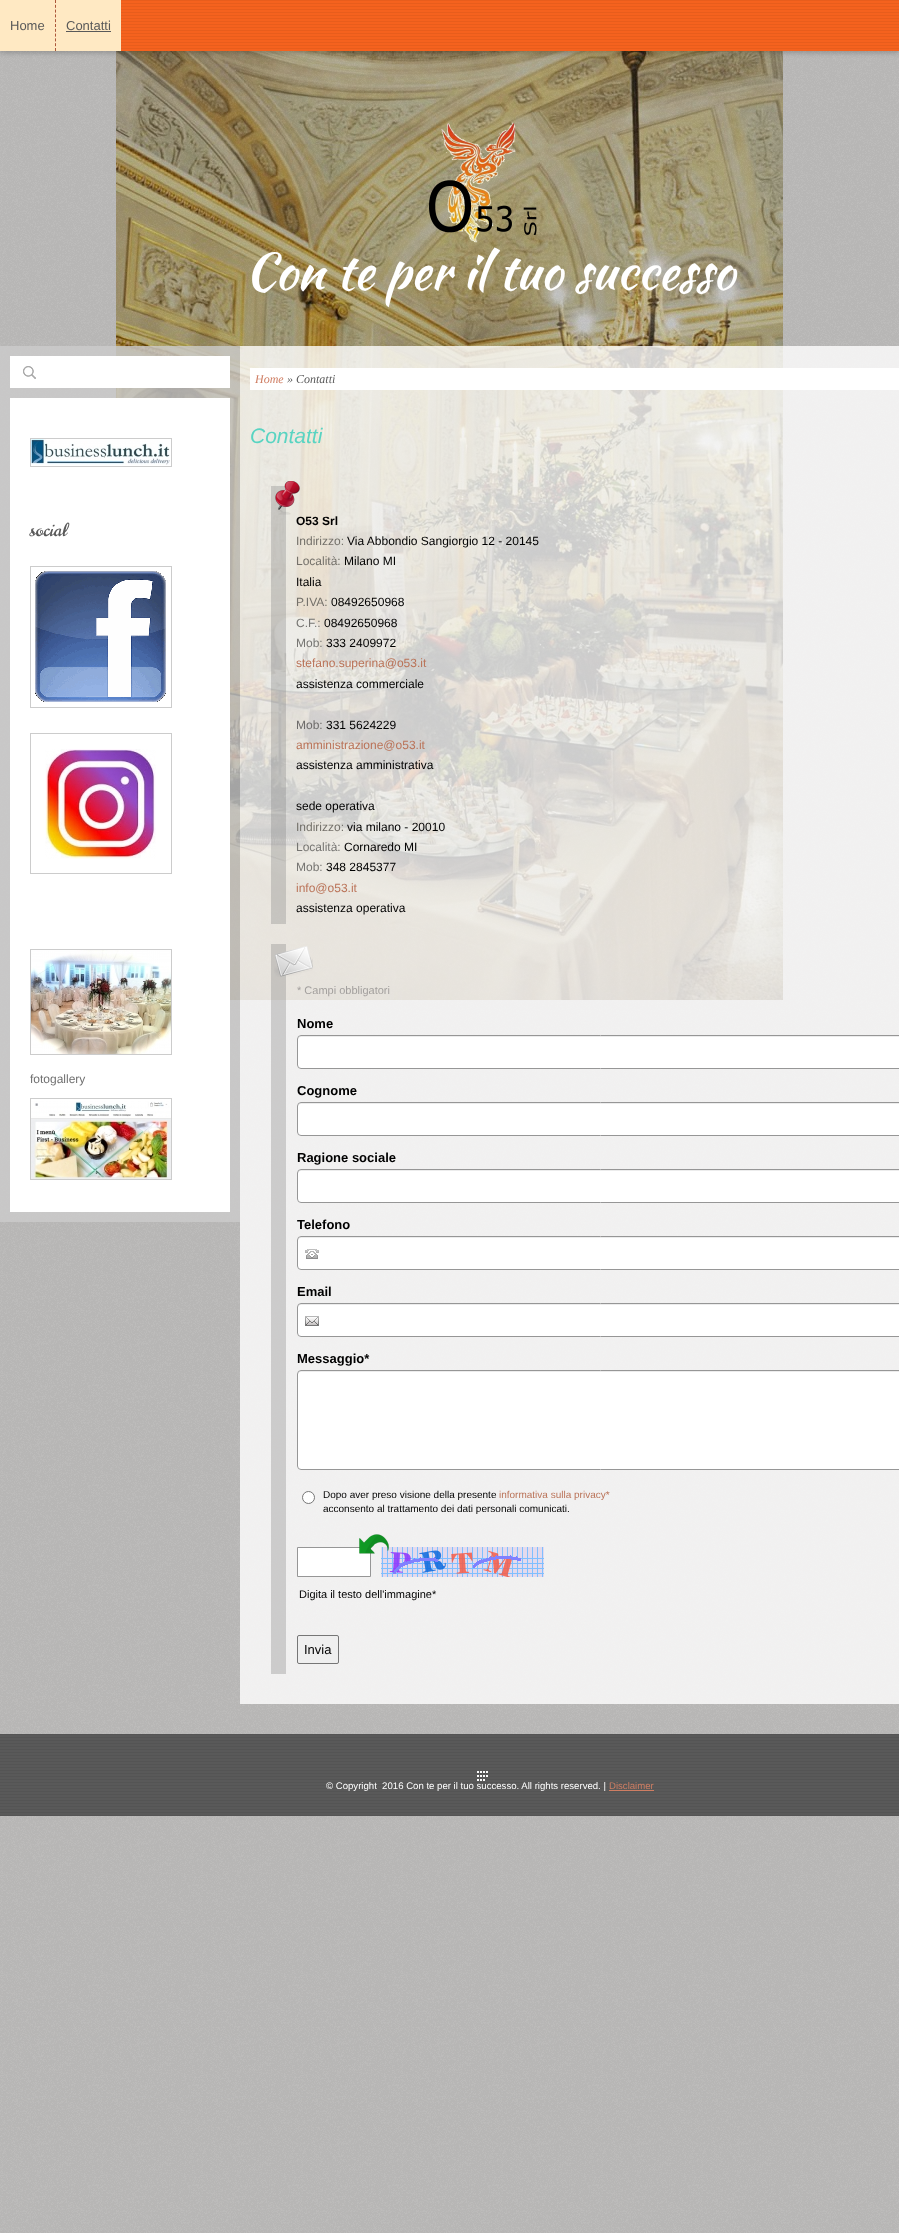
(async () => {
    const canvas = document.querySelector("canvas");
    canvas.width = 899;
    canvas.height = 2233;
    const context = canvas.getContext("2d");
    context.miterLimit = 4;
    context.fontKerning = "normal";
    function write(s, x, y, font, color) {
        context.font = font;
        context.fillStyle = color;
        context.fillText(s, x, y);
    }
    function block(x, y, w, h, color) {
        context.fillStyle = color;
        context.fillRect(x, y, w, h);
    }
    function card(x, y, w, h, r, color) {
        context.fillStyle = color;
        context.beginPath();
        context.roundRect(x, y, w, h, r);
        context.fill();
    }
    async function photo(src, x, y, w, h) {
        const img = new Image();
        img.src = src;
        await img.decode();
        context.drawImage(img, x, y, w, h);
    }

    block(0, 0, 899, 2233, "rgb(245, 243, 242)");
    await photo("media/1.png", 116, 51, 667, 949);
    await photo("media/18.png", 0, 51, 899, 2182);
    context.fillStyle = "rgba(0, 0, 0, 0.2)";
    context.filter = "blur(2.5px)";
    context.beginPath();
    context.rect(0, 2, 899, 51);
    context.fill();
    context.filter = "none";
    block(121, 0, 778, 51, "rgb(245, 98, 30)");
    await photo("media/2.png", 121, 0, 778, 49);
    block(0, 0, 121, 51, "rgb(255, 233, 195)");
    context.beginPath();
    context.moveTo(55.5, 0);
    context.lineTo(55.5, 51);
    context.strokeStyle = "rgb(171, 87, 58)";
    context.setLineDash([3, 1.8]);
    context.stroke();
    write("Home", 10, 30, "13px Liberation Sans", "rgb(89, 89, 89)");
    write("Contatti", 66, 30, "13px Liberation Sans", "rgb(89, 89, 89)");
    block(66, 31, 45, 1, "rgb(89, 89, 89)");
    await photo("media/3.png", 429, 122, 108, 121);
    write("Con te per il tuo successo", 245, 289, "50px Kaushan Script", "rgb(255, 255, 255)");
    block(0, 346, 240, 876, "rgba(204, 204, 204, 0.8)");
    block(10, 356, 220, 32, "rgb(255, 255, 255)");
    await photo("media/4.png", 23, 366, 13, 13);
    block(10, 398, 220, 814, "rgb(255, 255, 255)");
    context.strokeStyle = "rgb(204, 204, 204)";
    context.setLineDash([]);
    context.strokeRect(30.5, 438.5, 141, 28);
    await photo("media/5.png", 31, 439, 139, 26);
    write("social", 30, 536, "18px Norican", "rgb(89, 89, 89)");
    context.strokeRect(30.5, 566.5, 141, 141);
    await photo("media/6.png", 35, 571, 131, 131);
    context.strokeRect(30.5, 733.5, 141, 140);
    await photo("media/7.png", 45, 749, 111, 110);
    context.strokeRect(30.5, 949.5, 141, 105);
    await photo("media/8.png", 31, 950, 140, 104);
    write("fotogallery", 30, 1083, "12px Liberation Sans", "rgb(112, 112, 112)");
    context.strokeRect(30.5, 1098.5, 141, 81);
    await photo("media/9.png", 31, 1101, 140, 78);
    block(240, 346, 659, 1358, "rgba(255, 255, 255, 0.8)");
    block(250, 368, 649, 22, "rgb(255, 255, 255)");
    write("Home", 255, 383, "italic 12px Liberation Serif", "rgb(207, 126, 99)");
    write("» Contatti", 287, 383, "italic 12px Liberation Serif", "rgb(89, 89, 89)");
    write("Contatti", 250, 443, "italic 21px Liberation Sans", "rgb(89, 212, 194)");
    block(271, 486, 15, 438, "rgba(136, 136, 136, 0.35)");
    await photo("media/10.png", 275, 481, 25, 34);
    write("O53 Srl", 296, 525, "bold 12px Liberation Sans", "rgb(0, 0, 0)");
    write("Indirizzo:", 296, 545, "12px Liberation Sans", "rgb(116, 113, 106)");
    write("Via Abbondio Sangiorgio 12 - 20145", 347, 545, "12px Liberation Sans", "rgb(0, 0, 0)");
    write("Località:", 296, 565, "12px Liberation Sans", "rgb(116, 113, 106)");
    write("Milano MI", 344, 565, "12px Liberation Sans", "rgb(0, 0, 0)");
    write("Italia", 296, 586, "12px Liberation Sans", "rgb(0, 0, 0)");
    write("P.IVA:", 296, 606, "12px Liberation Sans", "rgb(116, 113, 106)");
    write("08492650968", 331, 606, "12px Liberation Sans", "rgb(0, 0, 0)");
    write("C.F.:", 296, 627, "12px Liberation Sans", "rgb(118, 117, 114)");
    write("08492650968", 324, 627, "12px Liberation Sans", "rgb(0, 0, 0)");
    write("Mob:", 296, 647, "12px Liberation Sans", "rgb(118, 117, 114)");
    write("333 2409972", 326, 647, "12px Liberation Sans", "rgb(0, 0, 0)");
    write("stefano.superina@o53.it", 296, 667, "12px Liberation Sans", "rgb(186, 115, 88)");
    write("assistenza commerciale", 296, 688, "12px Liberation Sans", "rgb(0, 0, 0)");
    write("Mob:", 296, 729, "12px Liberation Sans", "rgb(109, 107, 106)");
    write("331 5624229", 326, 729, "12px Liberation Sans", "rgb(0, 0, 0)");
    write("amministrazione@o53.it", 296, 749, "12px Liberation Sans", "rgb(186, 115, 88)");
    write("assistenza amministrativa", 296, 769, "12px Liberation Sans", "rgb(0, 0, 0)");
    write("sede operativa", 296, 810, "12px Liberation Sans", "rgb(0, 0, 0)");
    write("Indirizzo:", 296, 831, "12px Liberation Sans", "rgb(116, 113, 106)");
    write("via milano - 20010", 347, 831, "12px Liberation Sans", "rgb(0, 0, 0)");
    write("Località:", 296, 851, "12px Liberation Sans", "rgb(118, 117, 114)");
    write("Cornaredo MI", 344, 851, "12px Liberation Sans", "rgb(0, 0, 0)");
    write("Mob:", 296, 871, "12px Liberation Sans", "rgb(118, 117, 114)");
    write("348 2845377", 326, 871, "12px Liberation Sans", "rgb(0, 0, 0)");
    write("info@o53.it", 296, 892, "12px Liberation Sans", "rgb(186, 115, 88)");
    write("assistenza operativa", 296, 912, "12px Liberation Sans", "rgb(0, 0, 0)");
    block(271, 944, 15, 730, "rgba(136, 136, 136, 0.35)");
    await photo("media/11.png", 274, 946, 39, 31);
    write("* Campi obbligatori", 297, 994, "11px Liberation Sans", "rgb(162, 159, 157)");
    write("Nome", 297, 1028, "bold 13px Liberation Sans", "rgb(0, 0, 0)");
    card(297, 1035, 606, 34, 4, "rgb(255, 255, 255)");
    context.fillStyle = "rgb(236, 236, 236)";
    context.beginPath();
    context.moveTo(301, 1037);
    context.lineTo(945, 1037);
    context.bezierCurveTo(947, 1037, 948, 1038, 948, 1040);
    context.lineTo(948, 1039);
    context.bezierCurveTo(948, 1037, 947, 1036, 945, 1036);
    context.lineTo(301, 1036);
    context.bezierCurveTo(299, 1036, 298, 1037, 298, 1039);
    context.lineTo(298, 1040);
    context.bezierCurveTo(298, 1038, 299, 1037, 301, 1037);
    context.closePath();
    context.fill();
    context.beginPath();
    context.roundRect(297.5, 1035.5, 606, 33, 3.5);
    context.strokeStyle = "rgb(150, 150, 150)";
    context.stroke();
    write("Cognome", 297, 1095, "bold 13px Liberation Sans", "rgb(0, 0, 0)");
    card(297, 1102, 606, 34, 4, "rgb(255, 255, 255)");
    context.fillStyle = "rgb(236, 236, 236)";
    context.beginPath();
    context.moveTo(301, 1104);
    context.lineTo(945, 1104);
    context.bezierCurveTo(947, 1104, 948, 1105, 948, 1107);
    context.lineTo(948, 1106);
    context.bezierCurveTo(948, 1104, 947, 1103, 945, 1103);
    context.lineTo(301, 1103);
    context.bezierCurveTo(299, 1103, 298, 1104, 298, 1106);
    context.lineTo(298, 1107);
    context.bezierCurveTo(298, 1105, 299, 1104, 301, 1104);
    context.closePath();
    context.fill();
    context.beginPath();
    context.roundRect(297.5, 1102.5, 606, 33, 3.5);
    context.stroke();
    write("Ragione sociale", 297, 1162, "bold 13px Liberation Sans", "rgb(0, 0, 0)");
    card(297, 1169, 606, 34, 4, "rgb(255, 255, 255)");
    context.fillStyle = "rgb(236, 236, 236)";
    context.beginPath();
    context.moveTo(301, 1171);
    context.lineTo(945, 1171);
    context.bezierCurveTo(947, 1171, 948, 1172, 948, 1174);
    context.lineTo(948, 1173);
    context.bezierCurveTo(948, 1171, 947, 1170, 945, 1170);
    context.lineTo(301, 1170);
    context.bezierCurveTo(299, 1170, 298, 1171, 298, 1173);
    context.lineTo(298, 1174);
    context.bezierCurveTo(298, 1172, 299, 1171, 301, 1171);
    context.closePath();
    context.fill();
    context.beginPath();
    context.roundRect(297.5, 1169.5, 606, 33, 3.5);
    context.stroke();
    write("Telefono", 297, 1229, "bold 13px Liberation Sans", "rgb(0, 0, 0)");
    card(297, 1236, 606, 34, 4, "rgb(255, 255, 255)");
    await photo("media/12.png", 305, 1249, 14, 10);
    context.fillStyle = "rgb(236, 236, 236)";
    context.beginPath();
    context.moveTo(301, 1238);
    context.lineTo(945, 1238);
    context.bezierCurveTo(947, 1238, 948, 1239, 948, 1241);
    context.lineTo(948, 1240);
    context.bezierCurveTo(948, 1238, 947, 1237, 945, 1237);
    context.lineTo(301, 1237);
    context.bezierCurveTo(299, 1237, 298, 1238, 298, 1240);
    context.lineTo(298, 1241);
    context.bezierCurveTo(298, 1239, 299, 1238, 301, 1238);
    context.closePath();
    context.fill();
    context.beginPath();
    context.roundRect(297.5, 1236.5, 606, 33, 3.5);
    context.stroke();
    write("Email", 297, 1296, "bold 13px Liberation Sans", "rgb(0, 0, 0)");
    card(297, 1303, 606, 34, 4, "rgb(255, 255, 255)");
    await photo("media/13.png", 305, 1316, 14, 10);
    context.fillStyle = "rgb(236, 236, 236)";
    context.beginPath();
    context.moveTo(301, 1305);
    context.lineTo(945, 1305);
    context.bezierCurveTo(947, 1305, 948, 1306, 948, 1308);
    context.lineTo(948, 1307);
    context.bezierCurveTo(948, 1305, 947, 1304, 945, 1304);
    context.lineTo(301, 1304);
    context.bezierCurveTo(299, 1304, 298, 1305, 298, 1307);
    context.lineTo(298, 1308);
    context.bezierCurveTo(298, 1306, 299, 1305, 301, 1305);
    context.closePath();
    context.fill();
    context.beginPath();
    context.roundRect(297.5, 1303.5, 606, 33, 3.5);
    context.stroke();
    write("Messaggio*", 297, 1363, "bold 13px Liberation Sans", "rgb(0, 0, 0)");
    card(297, 1370, 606, 100, 4, "rgb(255, 255, 255)");
    context.fillStyle = "rgb(236, 236, 236)";
    context.beginPath();
    context.moveTo(301, 1372);
    context.lineTo(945, 1372);
    context.bezierCurveTo(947, 1372, 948, 1373, 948, 1375);
    context.lineTo(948, 1374);
    context.bezierCurveTo(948, 1372, 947, 1371, 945, 1371);
    context.lineTo(301, 1371);
    context.bezierCurveTo(299, 1371, 298, 1372, 298, 1374);
    context.lineTo(298, 1375);
    context.bezierCurveTo(298, 1373, 299, 1372, 301, 1372);
    context.closePath();
    context.fill();
    context.beginPath();
    context.roundRect(297.5, 1370.5, 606, 99, 3.5);
    context.stroke();
    context.fillStyle = "rgb(255, 255, 255)";
    context.beginPath();
    context.arc(308.5, 1497.5, 6, 0, Math.PI * 2);
    context.fill();
    context.strokeStyle = "rgb(118, 118, 118)";
    context.stroke();
    write("Dopo aver preso visione della presente", 323, 1498, "10px Liberation Sans", "rgb(0, 0, 0)");
    write("informativa sulla privacy*", 499, 1498, "10px Liberation Sans", "rgb(186, 115, 88)");
    write("acconsento al trattamento dei dati personali comunicati.", 323, 1512, "10px Liberation Sans", "rgb(0, 0, 0)");
    context.fillStyle = "rgb(255, 255, 255)";
    context.beginPath();
    context.rect(297.5, 1547.5, 73, 29);
    context.fill();
    context.strokeStyle = "rgb(150, 150, 150)";
    context.stroke();
    await photo("media/15.png", 381, 1547, 163, 30);
    await photo("media/14.png", 359, 1534, 30, 20);
    write("Digita il testo dell'immagine*", 299, 1598, "11px Liberation Sans", "rgb(0, 0, 0)");
    context.fillStyle = "rgb(239, 239, 239)";
    context.beginPath();
    context.roundRect(297.5, 1635.5, 41, 28, 1.5);
    context.fill();
    context.strokeStyle = "rgb(118, 118, 118)";
    context.stroke();
    write("Invia", 304, 1654, "13px Liberation Sans", "rgb(0, 0, 0)");
    block(0, 1734, 899, 82, "rgb(89, 89, 89)");
    await photo("media/16.png", 0, 1734, 899, 82);
    await photo("media/17.png", 477, 1771, 11, 10);
    write("© Copyright  2016 Con te per il tuo successo. All rights reserved. |", 326, 1789, "9.6px Liberation Sans", "rgb(255, 255, 255)");
    write("Disclaimer", 609, 1789, "9.6px Liberation Sans", "rgb(207, 126, 99)");
    block(609, 1790, 45, 1, "rgb(207, 126, 99)");
})();
